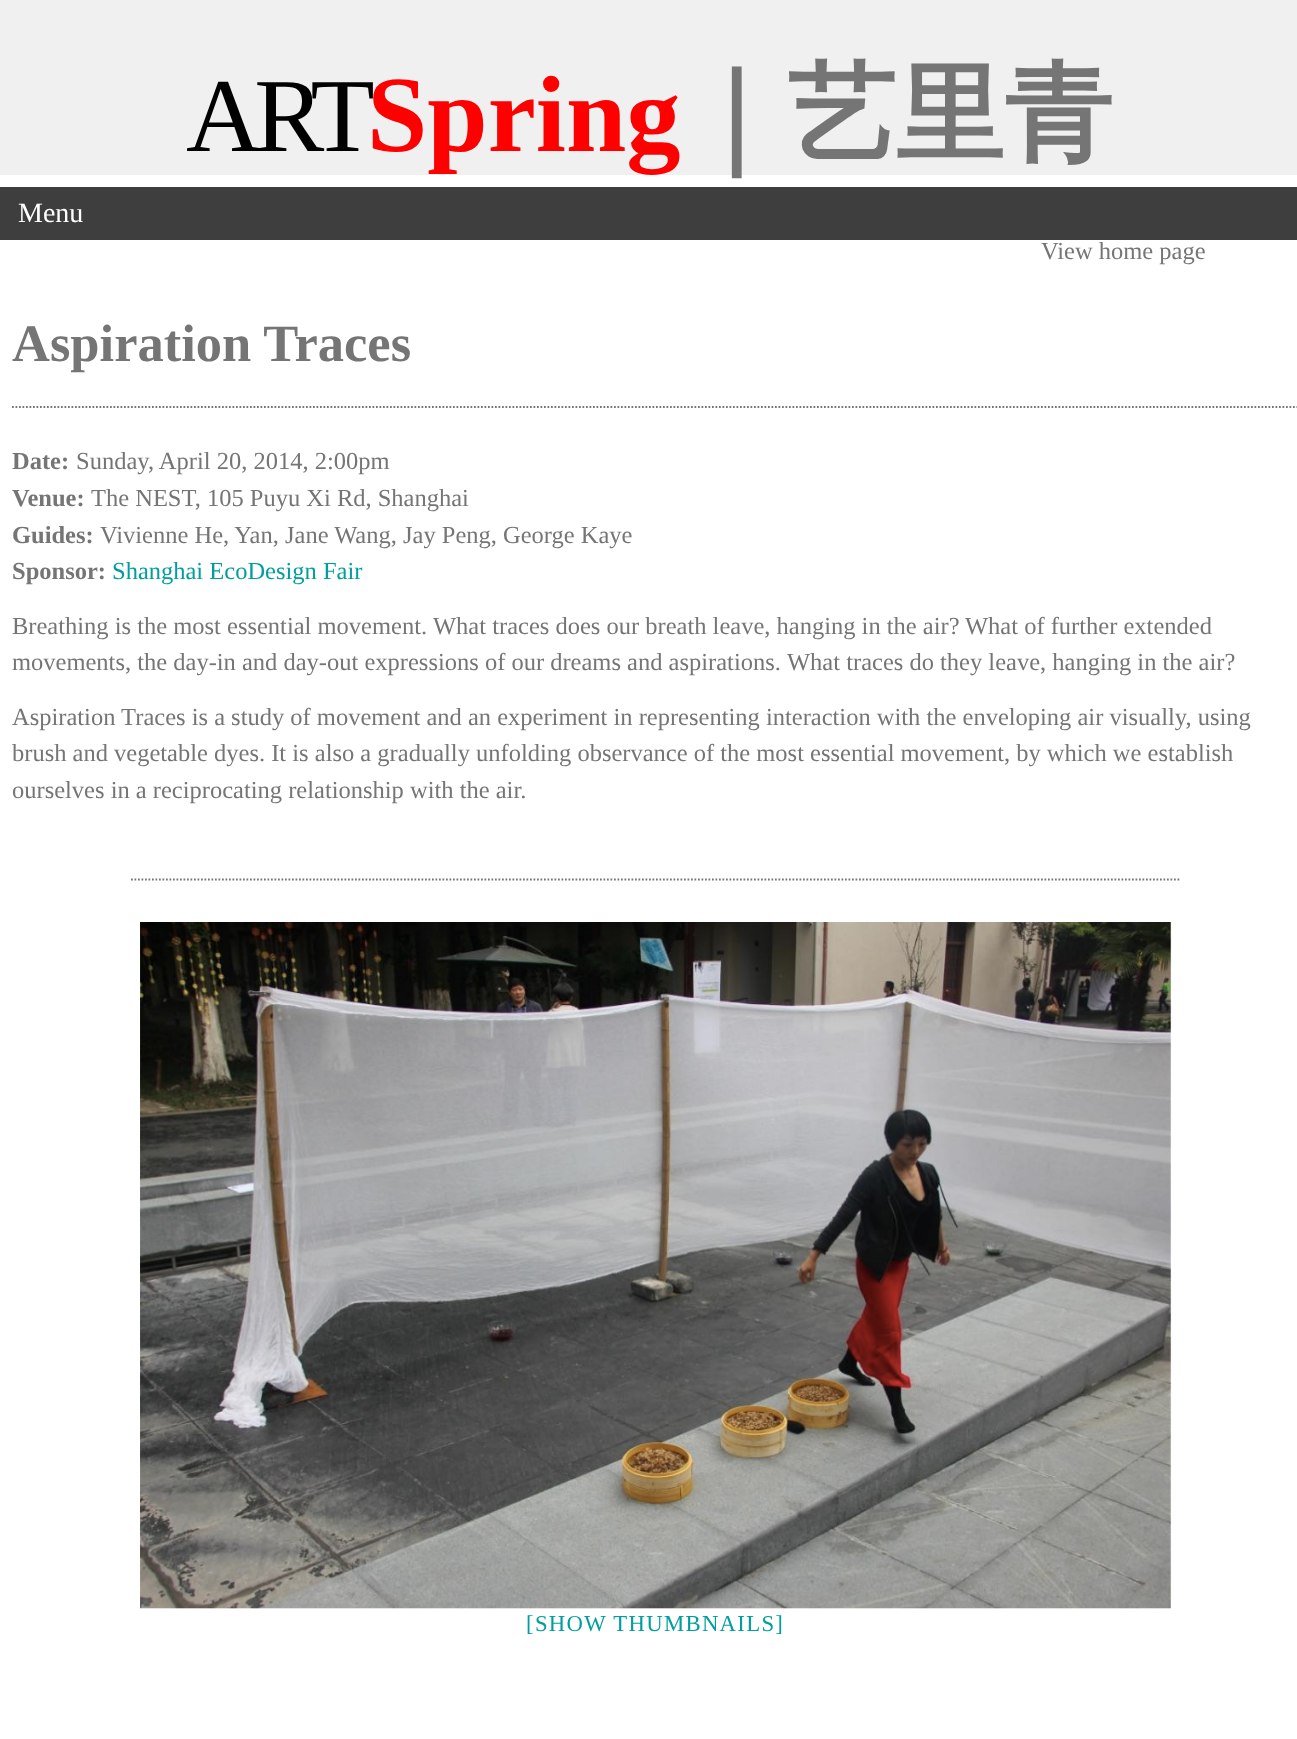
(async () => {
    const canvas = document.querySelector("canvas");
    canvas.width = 1297;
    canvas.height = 1739;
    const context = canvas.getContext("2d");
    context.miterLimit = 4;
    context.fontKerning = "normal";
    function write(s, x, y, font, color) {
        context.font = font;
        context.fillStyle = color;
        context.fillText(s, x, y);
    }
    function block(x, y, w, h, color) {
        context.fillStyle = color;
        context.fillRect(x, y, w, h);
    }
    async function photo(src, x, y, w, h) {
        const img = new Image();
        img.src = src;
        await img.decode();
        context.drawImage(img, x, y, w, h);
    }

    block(0, 0, 1297, 1739, "rgb(255, 255, 255)");
    block(0, 0, 1297, 175, "rgb(240, 240, 240)");
    context.letterSpacing = "-7.5px";
    write("ART", 186, 151, "105px Liberation Serif", "rgb(0, 0, 0)");
    context.letterSpacing = "0px";
    write("Spring", 367, 151, "bold 108.5px Liberation Serif", "rgb(255, 0, 0)");
    write("｜艺里青", 681, 151, "bold 108.5px WenQuanYi Zen Hei", "rgb(117, 117, 117)");
    block(0, 187, 1297, 53, "rgb(62, 62, 62)");
    write("Menu", 18, 222, "28px Liberation Serif", "rgb(255, 255, 255)");
    write("View home page", 1041, 259, "24.5px Liberation Serif", "rgb(117, 117, 117)");
    context.beginPath();
    context.moveTo(12, 407);
    context.lineTo(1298.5, 407);
    context.strokeStyle = "rgb(117, 117, 117)";
    context.lineWidth = 1.8;
    context.setLineDash([1.75, 1.75]);
    context.stroke();
    write("Aspiration Traces", 12, 361, "bold 52.5px Liberation Serif", "rgb(117, 117, 117)");
    write("Date:", 12, 469, "bold 24.5px Liberation Serif", "rgb(117, 117, 117)");
    write("Sunday, April 20, 2014, 2:00pm", 76, 469, "24.5px Liberation Serif", "rgb(117, 117, 117)");
    write("Venue:", 12, 506, "bold 24.5px Liberation Serif", "rgb(117, 117, 117)");
    write("The NEST, 105 Puyu Xi Rd, Shanghai", 91, 506, "24.5px Liberation Serif", "rgb(117, 117, 117)");
    write("Guides:", 12, 543, "bold 24.5px Liberation Serif", "rgb(117, 117, 117)");
    write("Vivienne He, Yan, Jane Wang, Jay Peng, George Kaye", 100, 543, "24.5px Liberation Serif", "rgb(117, 117, 117)");
    write("Sponsor:", 12, 579, "bold 24.5px Liberation Serif", "rgb(117, 117, 117)");
    write("Shanghai EcoDesign Fair", 112, 579, "24.5px Liberation Serif", "rgb(0, 158, 158)");
    write("Breathing is the most essential movement.", 12, 634, "24.5px Liberation Serif", "rgb(117, 117, 117)");
    write("What traces does our breath leave, hanging in the air?", 433, 634, "24.5px Liberation Serif", "rgb(117, 117, 117)");
    write("What of further extended", 965, 634, "24.5px Liberation Serif", "rgb(117, 117, 117)");
    write("movements, the day-in and day-out expressions of our dreams and aspirations.", 12, 670, "24.5px Liberation Serif", "rgb(117, 117, 117)");
    write("What traces do they leave, hanging in the air?", 787, 670, "24.5px Liberation Serif", "rgb(117, 117, 117)");
    write("Aspiration Traces is a study of movement and an experiment in representing interaction with the enveloping air visually, using", 12, 725, "24.5px Liberation Serif", "rgb(117, 117, 117)");
    write("brush and vegetable dyes. It is also a gradually unfolding observance of the most essential movement, by which we establish", 12, 761, "24.5px Liberation Serif", "rgb(117, 117, 117)");
    write("ourselves in a reciprocating relationship with the air.", 12, 798, "24.5px Liberation Serif", "rgb(117, 117, 117)");
    context.beginPath();
    context.moveTo(131, 879.5);
    context.lineTo(1181, 879.5);
    context.stroke();
    await photo("media/1.png", 140, 922, 1032, 687);
    context.letterSpacing = "1.3px";
    write("[SHOW THUMBNAILS]", 526, 1631, "22.75px Liberation Serif", "rgb(0, 158, 158)");
})();
